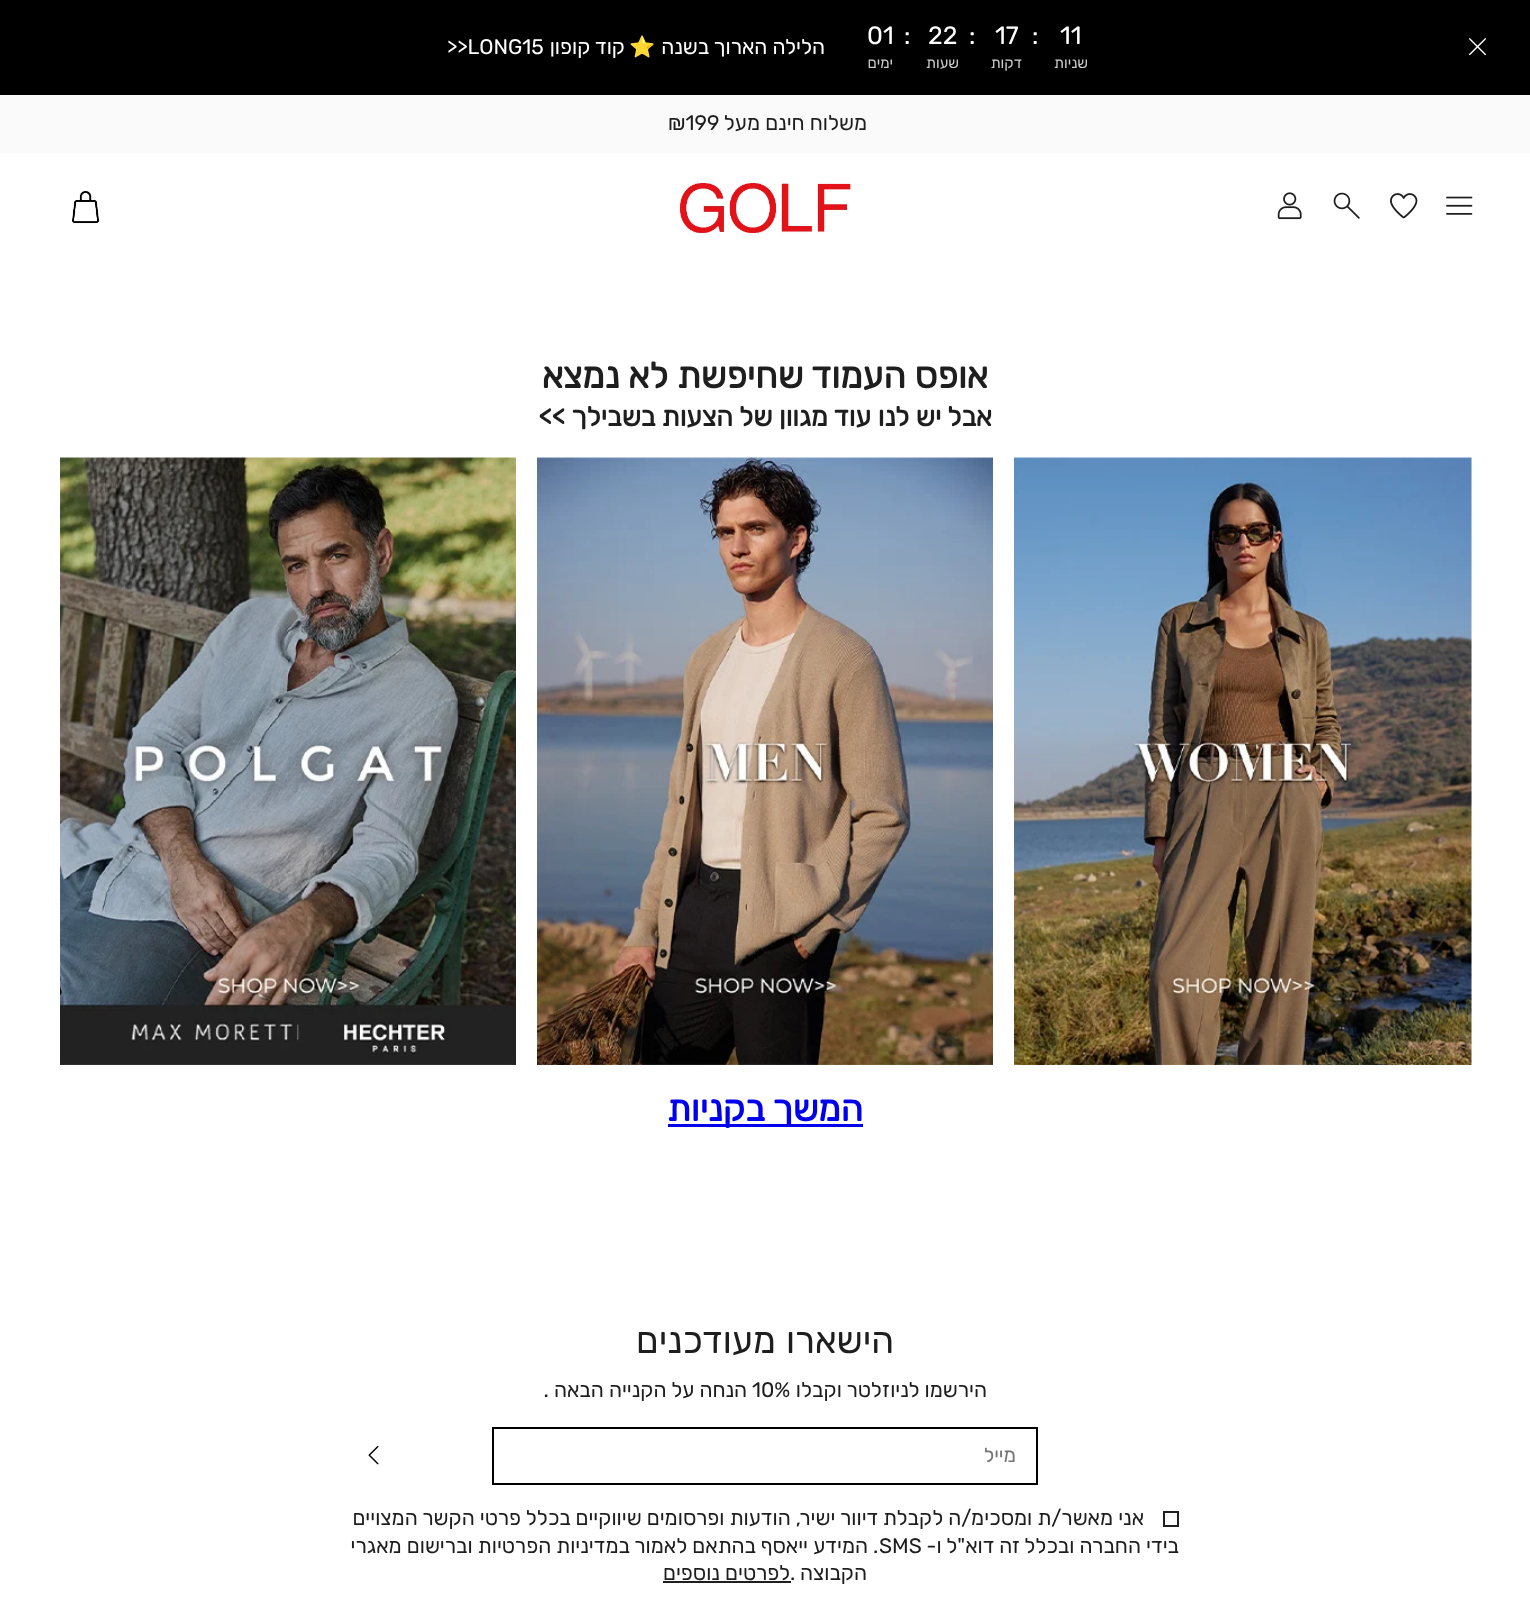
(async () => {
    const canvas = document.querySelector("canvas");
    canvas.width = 1530;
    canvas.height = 1621;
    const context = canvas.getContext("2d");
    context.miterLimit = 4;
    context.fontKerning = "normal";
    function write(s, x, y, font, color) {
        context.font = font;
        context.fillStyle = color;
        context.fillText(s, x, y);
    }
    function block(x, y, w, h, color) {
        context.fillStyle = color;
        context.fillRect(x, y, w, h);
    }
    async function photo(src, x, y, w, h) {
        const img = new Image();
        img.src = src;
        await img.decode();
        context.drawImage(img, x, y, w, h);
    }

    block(0, 0, 1530, 1621, "rgb(255, 255, 255)");
    block(0, 0, 1530, 95, "rgb(0, 0, 0)");
    await photo("media/1.png", 1469, 38, 17, 18);
    write("11", 1060, 44, "25px Rubik", "rgb(255, 255, 255)");
    context.direction = "rtl";
    write("שניות", 1088, 68, "15px Rubik", "rgb(204, 204, 204)");
    context.direction = "ltr";
    write(":", 1032, 44, "25px Rubik", "rgb(255, 255, 255)");
    write("17", 995, 44, "25px Rubik", "rgb(255, 255, 255)");
    context.direction = "rtl";
    write("דקות", 1022, 68, "15px Rubik", "rgb(204, 204, 204)");
    context.direction = "ltr";
    write(":", 969, 44, "25px Rubik", "rgb(255, 255, 255)");
    write("22", 928, 44, "25px Rubik", "rgb(255, 255, 255)");
    context.direction = "rtl";
    write("שעות", 959, 68, "15px Rubik", "rgb(204, 204, 204)");
    context.direction = "ltr";
    write(":", 904, 44, "25px Rubik", "rgb(255, 255, 255)");
    write("01", 867, 44, "25px Rubik", "rgb(255, 255, 255)");
    context.direction = "rtl";
    write("ימים", 893, 68, "15px Rubik", "rgb(204, 204, 204)");
    write("הלילה הארוך בשנה", 825, 54, "21px Rubik", "rgb(255, 255, 255)");
    write("⭐", 656, 54, "21px Noto Color Emoji", "rgb(255, 255, 255)");
    write("קוד קופון", 625, 54, "21px Rubik", "rgb(255, 255, 255)");
    context.direction = "ltr";
    write(">>LONG15", 447, 54, "21px Rubik", "rgb(255, 255, 255)");
    block(0, 95, 1530, 58, "rgb(250, 250, 250)");
    context.direction = "rtl";
    write("משלוח חינם מעל", 867, 130, "21px Rubik", "rgb(30, 30, 30)");
    context.direction = "ltr";
    write("₪199", 668, 130, "21px Rubik", "rgb(30, 30, 30)");
    await photo("media/2.png", 1446, 196, 27, 19);
    await photo("media/3.png", 1390, 193, 28, 26);
    await photo("media/4.png", 1333, 192, 27, 27);
    await photo("media/5.png", 1277, 192, 25, 28);
    await photo("media/6.png", 679, 182, 173, 52);
    await photo("media/7.png", 72, 190, 28, 34);
    context.direction = "rtl";
    write("אופס העמוד שחיפשת לא נמצא", 988, 388, "bold 36px Rubik", "rgb(30, 30, 30)");
    write("אבל יש לנו עוד מגוון של הצעות בשבילך >>", 992, 426, "bold 27px Rubik", "rgb(30, 30, 30)");
    block(1471, 458, 1, 607, "rgb(250, 250, 250)");
    await photo("media/8.png", 1014, 457, 458, 608);
    await photo("media/9.png", 537, 457, 456, 608);
    await photo("media/10.png", 60, 457, 456, 608);
    block(668, 1124, 195, 3, "rgb(0, 0, 238)");
    write("המשך בקניות", 863, 1121, "bold 36px Rubik", "rgb(0, 0, 238)");
    context.wordSpacing = "1px";
    write("הישארו מעודכנים", 894, 1353, "36.75px Rubik", "rgb(30, 30, 30)");
    context.wordSpacing = "0px";
    write("הירשמו לניוזלטר וקבלו", 987, 1397, "21px Rubik", "rgb(30, 30, 30)");
    context.direction = "ltr";
    write("10%", 752, 1397, "21px Rubik", "rgb(30, 30, 30)");
    context.direction = "rtl";
    write("הנחה על הקנייה הבאה .", 747, 1397, "21px Rubik", "rgb(30, 30, 30)");
    context.strokeStyle = "rgb(0, 0, 0)";
    context.lineWidth = 2;
    context.strokeRect(493, 1428, 544, 56);
    write("מייל", 1016, 1462, "20px Rubik", "rgb(117, 117, 117)");
    await photo("media/11.png", 368, 1446, 11, 19);
    context.strokeStyle = "rgb(250, 250, 250)";
    context.lineWidth = 5;
    context.strokeRect(1166.5, 1514.5, 9, 9);
    context.strokeStyle = "rgb(30, 30, 30)";
    context.lineWidth = 2;
    context.strokeRect(1164, 1512, 14, 14);
    write("אני מאשר/ת ומסכימ/ה לקבלת דיוור ישיר, הודעות ופרסומים שיווקיים בכלל פרטי הקשר המצויים", 1144, 1525, "21px Rubik", "rgb(30, 30, 30)");
    write("בידי החברה ובכלל זה דוא\"ל ו-", 1179, 1553, "21px Rubik", "rgb(30, 30, 30)");
    context.direction = "ltr";
    write("SMS", 879, 1553, "21px Rubik", "rgb(30, 30, 30)");
    write(".", 873, 1553, "21px Rubik", "rgb(30, 30, 30)");
    context.direction = "rtl";
    write("המידע ייאסף בהתאם לאמור במדיניות הפרטיות וברישום מאגרי", 868, 1553, "21px Rubik", "rgb(30, 30, 30)");
    write("הקבוצה", 867, 1580, "21px Rubik", "rgb(30, 30, 30)");
    context.direction = "ltr";
    write(".", 790, 1580, "21px Rubik", "rgb(30, 30, 30)");
    block(663, 1581, 128, 2, "rgb(30, 30, 30)");
    context.direction = "rtl";
    write("לפרטים נוספים", 790, 1580, "21px Rubik", "rgb(30, 30, 30)");
})();
